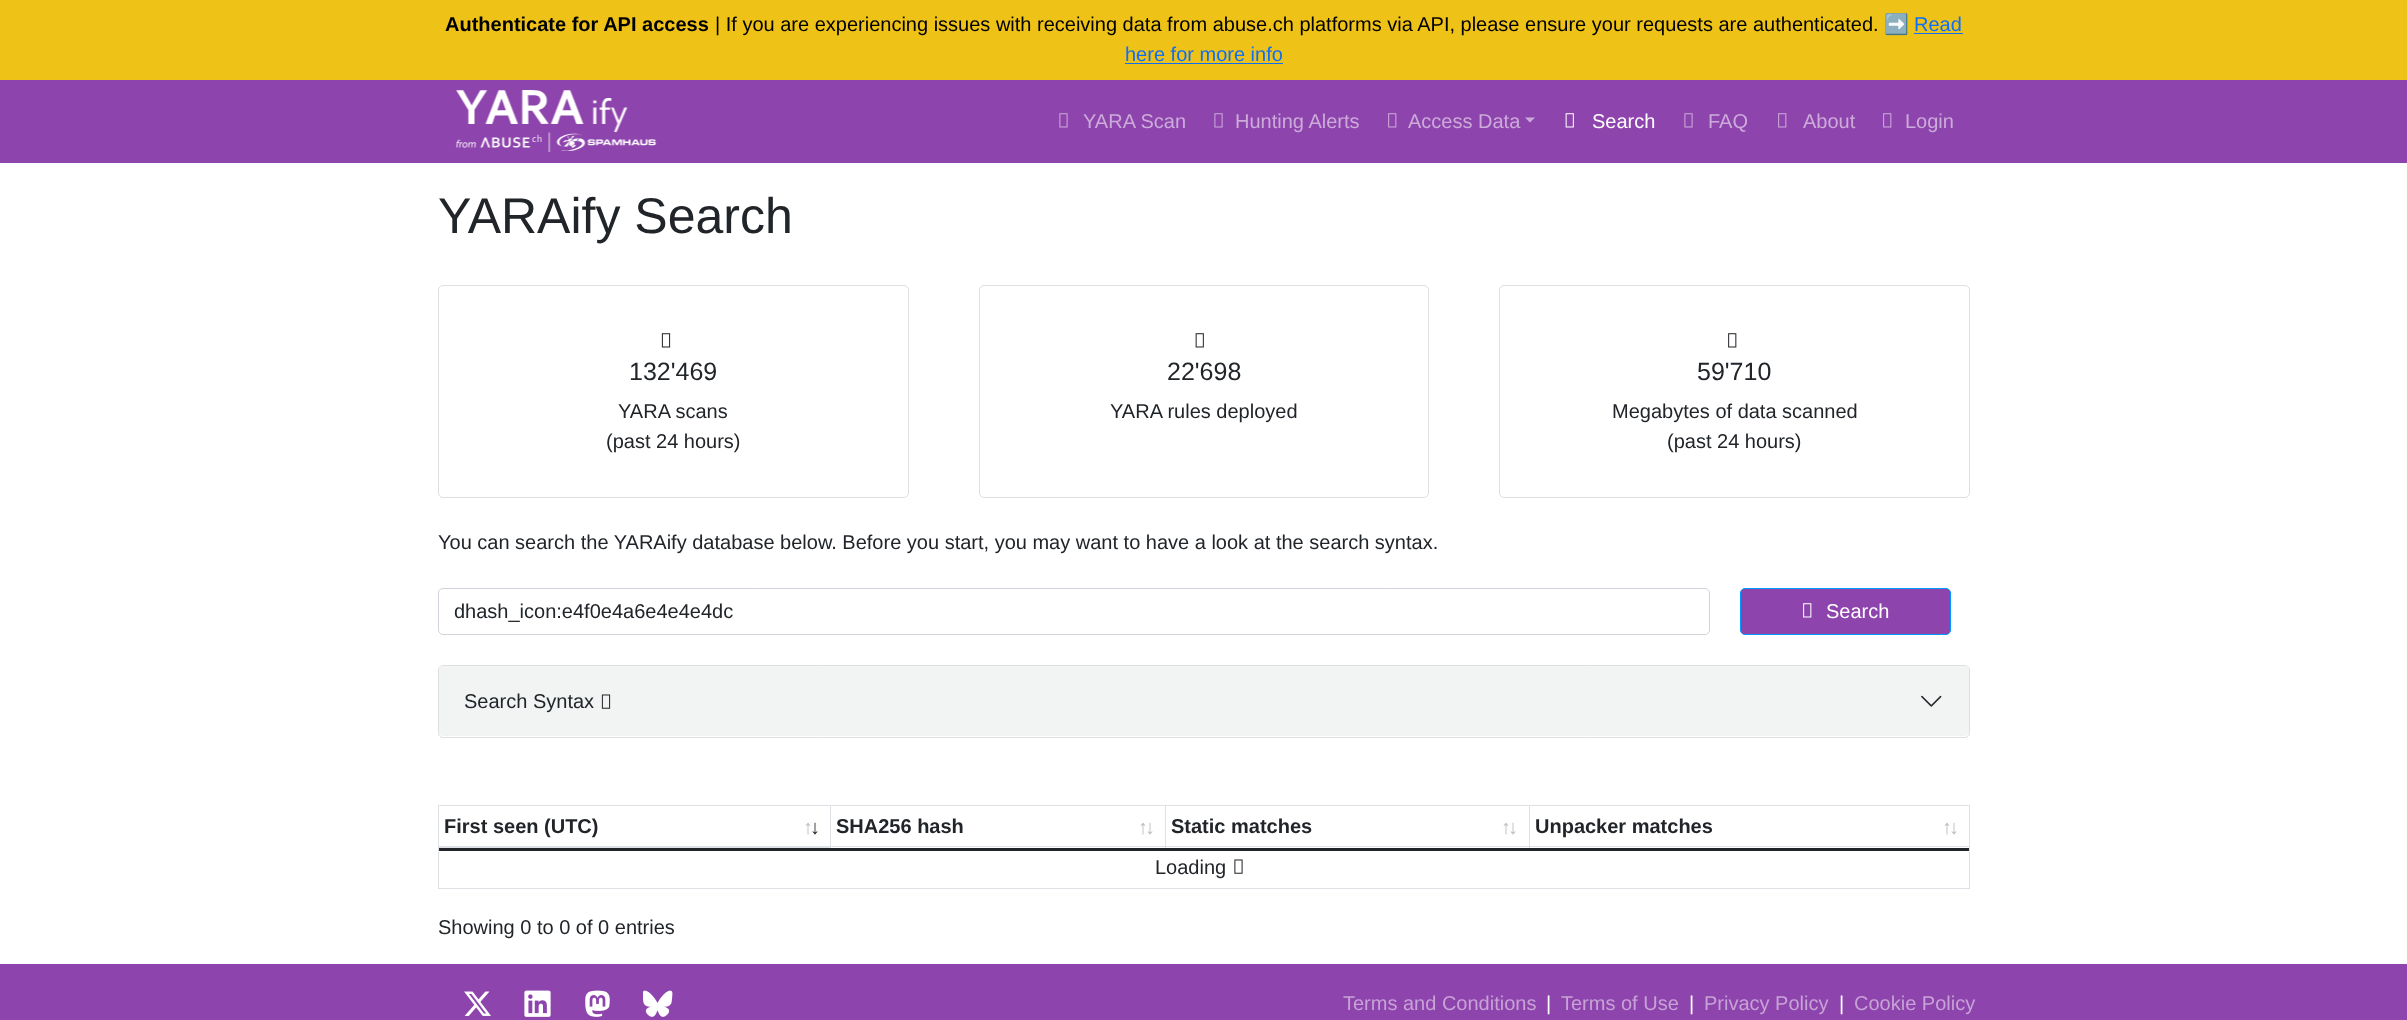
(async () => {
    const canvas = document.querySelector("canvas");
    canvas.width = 2407;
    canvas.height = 1020;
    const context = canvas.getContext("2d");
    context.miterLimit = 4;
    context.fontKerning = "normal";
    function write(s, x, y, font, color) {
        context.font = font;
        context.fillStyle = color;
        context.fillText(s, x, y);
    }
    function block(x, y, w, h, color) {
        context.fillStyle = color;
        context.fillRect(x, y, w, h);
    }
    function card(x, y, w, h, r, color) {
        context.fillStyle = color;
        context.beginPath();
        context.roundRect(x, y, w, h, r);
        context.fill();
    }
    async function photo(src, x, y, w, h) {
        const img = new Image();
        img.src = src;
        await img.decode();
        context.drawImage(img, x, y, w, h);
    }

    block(0, 0, 2407, 1020, "rgb(255, 255, 255)");
    block(0, 0, 2407, 80, "rgb(238, 194, 22)");
    write("Authenticate for API access", 445, 31, "bold 20px Liberation Sans", "rgb(0, 0, 0)");
    write("| If you are experiencing issues with receiving data from abuse.ch platforms via API, please ensure your requests are authenticated.", 715, 31, "20px Liberation Sans", "rgb(0, 0, 0)");
    write("➡️", 1884, 31, "20px Noto Color Emoji", "rgb(0, 0, 0)");
    write("Read", 1914, 31, "20px Liberation Sans", "rgb(13, 110, 253)");
    block(1914, 33, 49, 1, "rgb(13, 110, 253)");
    write("here for more info", 1125, 61, "20px Liberation Sans", "rgb(13, 110, 253)");
    block(1125, 63, 158, 1, "rgb(13, 110, 253)");
    block(0, 80, 2407, 83, "rgb(142, 68, 173)");
    await photo("media/1.png", 455, 90, 202, 62);
    await photo("media/2.png", 1059, 113, 9, 15);
    write("YARA Scan", 1083, 128, "20px Liberation Sans", "rgb(204, 171, 218)");
    await photo("media/2.png", 1214, 113, 9, 15);
    write("Hunting Alerts", 1235, 128, "20px Liberation Sans", "rgb(204, 171, 218)");
    await photo("media/3.png", 1388, 113, 9, 15);
    write("Access Data", 1408, 128, "20px Liberation Sans", "rgb(204, 171, 218)");
    context.beginPath();
    context.moveTo(1525, 117.5);
    context.lineTo(1535, 117.5);
    context.lineTo(1530, 122.5);
    context.closePath();
    context.fill();
    await photo("media/4.png", 1565, 113, 9, 15);
    write("Search", 1592, 128, "20px Liberation Sans", "rgb(255, 255, 255)");
    await photo("media/2.png", 1684, 113, 9, 15);
    write("FAQ", 1708, 128, "20px Liberation Sans", "rgb(204, 171, 218)");
    await photo("media/3.png", 1778, 113, 9, 15);
    write("About", 1803, 128, "20px Liberation Sans", "rgb(204, 171, 218)");
    await photo("media/3.png", 1883, 113, 9, 15);
    write("Login", 1905, 128, "20px Liberation Sans", "rgb(204, 171, 218)");
    write("YARAify Search", 438, 233, "50px Liberation Sans", "rgb(33, 37, 41)");
    context.beginPath();
    context.roundRect(438.5, 285.5, 470, 212, 4.5);
    context.strokeStyle = "rgb(223, 223, 223)";
    context.stroke();
    await photo("media/5.png", 661, 333, 10, 15);
    write("132'469", 629, 380, "25px Liberation Sans", "rgb(33, 37, 41)");
    write("YARA scans", 618, 418, "20px Liberation Sans", "rgb(33, 37, 41)");
    write("(past 24 hours)", 606, 448, "20px Liberation Sans", "rgb(33, 37, 41)");
    context.beginPath();
    context.roundRect(979.5, 285.5, 449, 212, 4.5);
    context.stroke();
    await photo("media/6.png", 1195, 333, 9, 15);
    write("22'698", 1167, 380, "25px Liberation Sans", "rgb(33, 37, 41)");
    write("YARA rules deployed", 1110, 418, "20px Liberation Sans", "rgb(33, 37, 41)");
    context.beginPath();
    context.roundRect(1499.5, 285.5, 470, 212, 4.5);
    context.stroke();
    await photo("media/7.png", 1728, 333, 9, 15);
    write("59'710", 1697, 380, "25px Liberation Sans", "rgb(33, 37, 41)");
    write("Megabytes of data scanned", 1612, 418, "20px Liberation Sans", "rgb(33, 37, 41)");
    write("(past 24 hours)", 1667, 448, "20px Liberation Sans", "rgb(33, 37, 41)");
    write("You can search the YARAify database below. Before you start, you may want to have a look at the search syntax.", 438, 549, "20px Liberation Sans", "rgb(33, 37, 41)");
    context.beginPath();
    context.roundRect(438.5, 588.5, 1271, 46, 4.5);
    context.strokeStyle = "rgb(206, 212, 218)";
    context.stroke();
    write("dhash_icon:e4f0e4a6e4e4e4dc", 454, 618, "20px Liberation Sans", "rgb(33, 37, 41)");
    context.fillStyle = "rgb(142, 68, 173)";
    context.beginPath();
    context.roundRect(1740.5, 588.5, 210, 46, 4.5);
    context.fill();
    context.strokeStyle = "rgb(0, 153, 255)";
    context.stroke();
    await photo("media/8.png", 1803, 603, 9, 15);
    write("Search", 1826, 618, "20px Liberation Sans", "rgb(255, 255, 255)");
    context.beginPath();
    context.roundRect(438.5, 665.5, 1531, 72, 4.5);
    context.strokeStyle = "rgb(223, 223, 223)";
    context.stroke();
    card(439, 666, 1530, 70, 4, "rgb(242, 244, 244)");
    write("Search Syntax", 464, 708, "20px Liberation Sans", "rgb(33, 37, 41)");
    await photo("media/9.png", 601, 694, 10, 15);
    await photo("media/10.png", 1921, 695, 21, 12);
    block(831, 805, 1139, 1, "rgb(222, 226, 230)");
    block(438, 846, 1532, 1, "rgb(222, 226, 230)");
    context.strokeStyle = "rgb(222, 226, 230)";
    context.strokeRect(438.5, 805.5, 392, 42);
    write("First seen (UTC)", 444, 833, "bold 20px Liberation Sans", "rgb(33, 37, 41)");
    write("↑", 803, 834, "bold 20px Liberation Sans", "rgb(188, 190, 191)");
    write("↓", 810, 834, "bold 20px Liberation Sans", "rgb(33, 37, 41)");
    block(1165, 805, 1, 43, "rgb(222, 226, 230)");
    write("SHA256 hash", 836, 833, "bold 20px Liberation Sans", "rgb(33, 37, 41)");
    write("↑", 1138, 834, "bold 20px Liberation Sans", "rgb(188, 190, 191)");
    write("↓", 1145, 834, "bold 20px Liberation Sans", "rgb(188, 190, 191)");
    block(1529, 805, 1, 43, "rgb(222, 226, 230)");
    write("Static matches", 1171, 833, "bold 20px Liberation Sans", "rgb(33, 37, 41)");
    write("↑", 1501, 834, "bold 20px Liberation Sans", "rgb(188, 190, 191)");
    write("↓", 1508, 834, "bold 20px Liberation Sans", "rgb(188, 190, 191)");
    write("Unpacker matches", 1535, 833, "bold 20px Liberation Sans", "rgb(33, 37, 41)");
    write("↑", 1942, 834, "bold 20px Liberation Sans", "rgb(188, 190, 191)");
    write("↓", 1949, 834, "bold 20px Liberation Sans", "rgb(188, 190, 191)");
    block(438, 848, 1532, 3, "rgb(33, 37, 41)");
    block(438, 888, 1532, 1, "rgb(222, 226, 230)");
    block(1969, 805, 1, 84, "rgb(222, 226, 230)");
    block(438, 848, 1, 41, "rgb(222, 226, 230)");
    write("Loading", 1155, 874, "20px Liberation Sans", "rgb(33, 37, 41)");
    await photo("media/11.png", 1234, 859, 9, 15);
    write("Showing 0 to 0 of 0 entries", 438, 934, "20px Liberation Sans", "rgb(33, 37, 41)");
    block(0, 964, 2407, 56, "rgb(142, 68, 173)");
    await photo("media/12.png", 464, 991, 27, 25);
    await photo("media/13.png", 524, 990, 27, 27);
    await photo("media/14.png", 585, 990, 25, 27);
    await photo("media/15.png", 643, 990, 30, 27);
    write("Terms and Conditions", 1343, 1010, "20px Liberation Sans", "rgb(199, 162, 214)");
    write("|", 1546, 1010, "20px Liberation Sans", "rgb(255, 255, 255)");
    write("Terms of Use", 1561, 1010, "20px Liberation Sans", "rgb(199, 162, 214)");
    write("|", 1689, 1010, "20px Liberation Sans", "rgb(255, 255, 255)");
    write("Privacy Policy", 1704, 1010, "20px Liberation Sans", "rgb(199, 162, 214)");
    write("|", 1839, 1010, "20px Liberation Sans", "rgb(255, 255, 255)");
    write("Cookie Policy", 1854, 1010, "20px Liberation Sans", "rgb(199, 162, 214)");
})();
